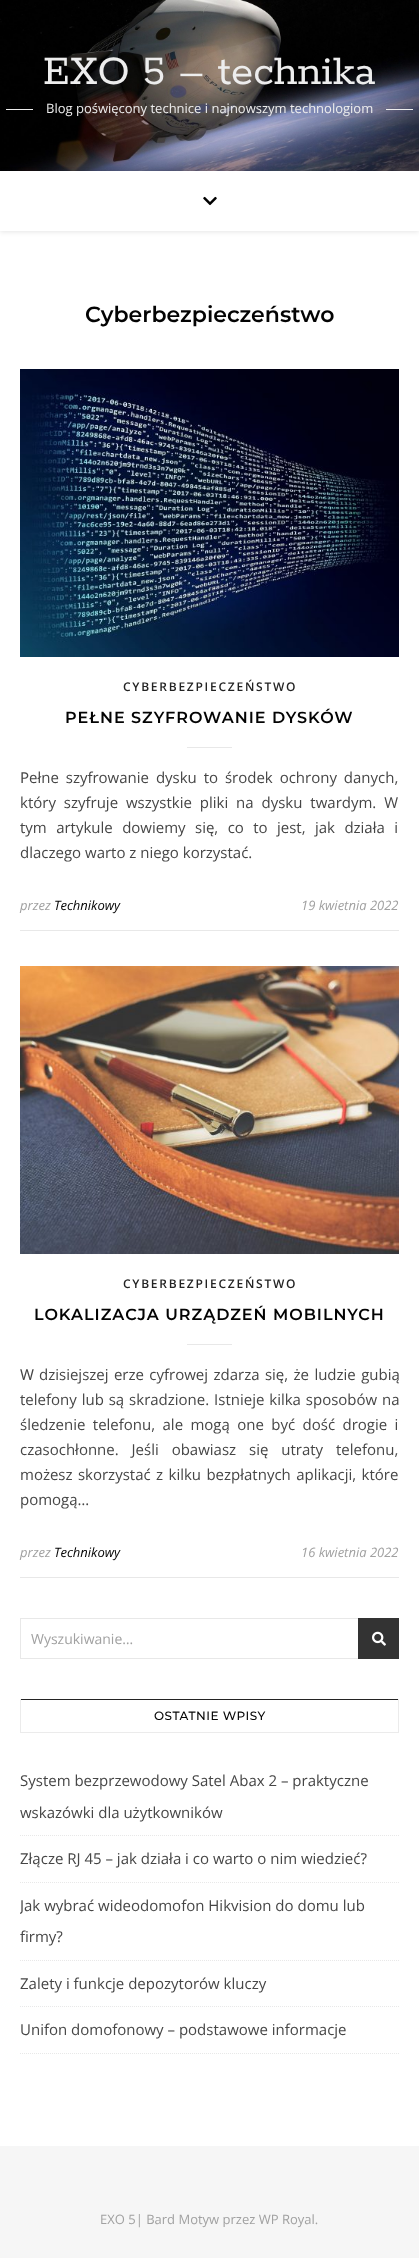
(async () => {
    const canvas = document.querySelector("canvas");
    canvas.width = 419;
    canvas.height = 2258;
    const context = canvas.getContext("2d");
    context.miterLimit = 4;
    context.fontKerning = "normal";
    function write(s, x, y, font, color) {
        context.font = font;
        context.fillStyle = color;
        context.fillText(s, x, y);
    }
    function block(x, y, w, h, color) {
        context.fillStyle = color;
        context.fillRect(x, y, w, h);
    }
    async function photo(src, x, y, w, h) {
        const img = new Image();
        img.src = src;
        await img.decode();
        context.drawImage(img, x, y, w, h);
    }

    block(0, 0, 419, 2258, "rgb(255, 255, 255)");
    await photo("media/1.png", 0, 0, 419, 171);
    write("EXO 5 – technika", 43, 84, "45px Rokkitt", "rgb(237, 237, 237)");
    block(6, 109, 27, 1, "rgb(237, 237, 237)");
    write("Blog poświęcony technice i najnowszym technologiom", 46, 113, "13px Open Sans", "rgb(237, 237, 237)");
    block(386, 109, 27, 1, "rgb(237, 237, 237)");
    context.fillStyle = "rgba(0, 0, 0, 0.1)";
    context.filter = "blur(2.5px)";
    context.beginPath();
    context.rect(0, 172, 419, 60);
    context.fill();
    context.filter = "none";
    block(0, 171, 419, 60, "rgb(255, 255, 255)");
    await photo("media/2.png", 203, 196, 14, 10);
    write("Cyberbezpieczeństwo", 85, 322, "600 22px Montserrat", "rgb(3, 3, 3)");
    await photo("media/3.png", 20, 369, 379, 288);
    context.letterSpacing = "1.75px";
    write("CYBERBEZPIECZEŃSTWO", 123, 691, "600 12px Open Sans", "rgb(35, 35, 35)");
    context.letterSpacing = "1px";
    write("PEŁNE SZYFROWANIE DYSKÓW", 65, 723, "600 16px Montserrat", "rgb(3, 3, 3)");
    block(187, 747, 45, 1, "rgb(232, 232, 232)");
    context.letterSpacing = "0px";
    write("P", 20, 783, "15px Noto Sans", "rgb(70, 70, 70)");
    context.wordSpacing = "3px";
    write("ełne szyfrowanie dysku to środek ochrony danych,", 29, 783, "15px Open Sans", "rgb(70, 70, 70)");
    context.wordSpacing = "4px";
    write("który szyfruje wszystkie pliki na dysku twardym. W", 20, 808, "15px Open Sans", "rgb(70, 70, 70)");
    context.wordSpacing = "5.5px";
    write("tym artykule dowiemy się, co to jest, jak działa i", 20, 833, "15px Open Sans", "rgb(70, 70, 70)");
    context.wordSpacing = "0px";
    write("dlaczego warto z niego korzystać.", 20, 858, "15px Open Sans", "rgb(70, 70, 70)");
    block(20, 930, 379, 1, "rgb(232, 232, 232)");
    write("przez", 20, 910, "italic 13px Open Sans", "rgb(161, 161, 161)");
    write("Technikowy", 54, 910, "italic 13px Open Sans", "rgb(3, 3, 3)");
    write("19 kwietnia 2022", 301, 910, "italic 13px Open Sans", "rgb(161, 161, 161)");
    await photo("media/4.png", 20, 966, 379, 288);
    context.letterSpacing = "1.75px";
    write("CYBERBEZPIECZEŃSTWO", 123, 1288, "600 12px Open Sans", "rgb(35, 35, 35)");
    context.letterSpacing = "1px";
    write("LOKALIZACJA URZĄDZEŃ MOBILNYCH", 34, 1320, "600 16px Montserrat", "rgb(3, 3, 3)");
    block(187, 1344, 45, 1, "rgb(232, 232, 232)");
    context.letterSpacing = "0px";
    write("W", 20, 1380, "15px Noto Sans", "rgb(70, 70, 70)");
    context.wordSpacing = "1.5px";
    write("dzisiejszej erze cyfrowej zdarza się, że ludzie gubią", 39, 1380, "15px Open Sans", "rgb(70, 70, 70)");
    context.wordSpacing = "1px";
    write("telefony lub są skradzione. Istnieje kilka sposobów na", 20, 1405, "15px Open Sans", "rgb(70, 70, 70)");
    context.wordSpacing = "3.5px";
    write("śledzenie telefonu, ale mogą one być dość drogie i", 20, 1430, "15px Open Sans", "rgb(70, 70, 70)");
    context.wordSpacing = "9px";
    write("czasochłonne. Jeśli obawiasz się utraty telefonu,", 20, 1455, "15px Open Sans", "rgb(70, 70, 70)");
    context.wordSpacing = "1.5px";
    write("możesz skorzystać z kilku bezpłatnych aplikacji, które", 20, 1480, "15px Open Sans", "rgb(70, 70, 70)");
    context.wordSpacing = "0px";
    write("pomogą…", 20, 1505, "15px Open Sans", "rgb(70, 70, 70)");
    block(20, 1577, 379, 1, "rgb(232, 232, 232)");
    write("przez", 20, 1557, "italic 13px Open Sans", "rgb(161, 161, 161)");
    write("Technikowy", 54, 1557, "italic 13px Open Sans", "rgb(3, 3, 3)");
    write("16 kwietnia 2022", 301, 1557, "italic 13px Open Sans", "rgb(161, 161, 161)");
    context.strokeStyle = "rgb(232, 232, 232)";
    context.strokeRect(20.5, 1618.5, 378, 40);
    write("Wyszukiwanie…", 31, 1644, "14px Open Sans", "rgb(161, 161, 161)");
    block(358, 1618, 41, 41, "rgb(51, 51, 51)");
    await photo("media/5.png", 372, 1631, 14, 15);
    block(20, 1699, 379, 1, "rgb(35, 35, 35)");
    block(398, 1699, 1, 34, "rgb(235, 235, 235)");
    block(20, 1732, 379, 1, "rgb(235, 235, 235)");
    block(20, 1699, 1, 34, "rgb(235, 235, 235)");
    context.letterSpacing = "0.5px";
    write("OSTATNIE WPISY", 154, 1720, "500 12px Montserrat", "rgb(3, 3, 3)");
    context.beginPath();
    context.moveTo(20, 1835.5);
    context.lineTo(399, 1835.5);
    context.setLineDash([1, 1]);
    context.stroke();
    context.letterSpacing = "0px";
    write("System bezprzewodowy Satel Abax 2 – praktyczne", 20, 1786, "15px Open Sans", "rgb(70, 70, 70)");
    write("wskazówki dla użytkowników", 20, 1818, "15px Open Sans", "rgb(70, 70, 70)");
    context.beginPath();
    context.moveTo(20, 1882.5);
    context.lineTo(399, 1882.5);
    context.stroke();
    write("Złącze RJ 45 – jak działa i co warto o nim wiedzieć?", 20, 1864, "15px Open Sans", "rgb(70, 70, 70)");
    context.beginPath();
    context.moveTo(20, 1960.5);
    context.lineTo(399, 1960.5);
    context.stroke();
    context.save();
    context.beginPath();
    context.rect(20, 1699, 379, 355);
    context.clip();
    write("Jak wybrać wideodomofon Hikvision do domu lub", 20, 1911, "15px Open Sans", "rgb(70, 70, 70)");
    context.restore();
    write("firmy?", 20, 1942, "15px Open Sans", "rgb(70, 70, 70)");
    context.beginPath();
    context.moveTo(20, 2006.5);
    context.lineTo(399, 2006.5);
    context.stroke();
    write("Zalety i funkcje depozytorów kluczy", 20, 1989, "15px Open Sans", "rgb(70, 70, 70)");
    context.beginPath();
    context.moveTo(20, 2053.5);
    context.lineTo(399, 2053.5);
    context.stroke();
    write("Unifon domofonowy – podstawowe informacje", 20, 2035, "15px Open Sans", "rgb(70, 70, 70)");
    block(0, 2146, 419, 112, "rgb(246, 246, 246)");
    write("EXO 5| Bard Motyw przez WP Royal.", 100, 2224, "13px Open Sans", "rgb(161, 161, 161)");
})();
